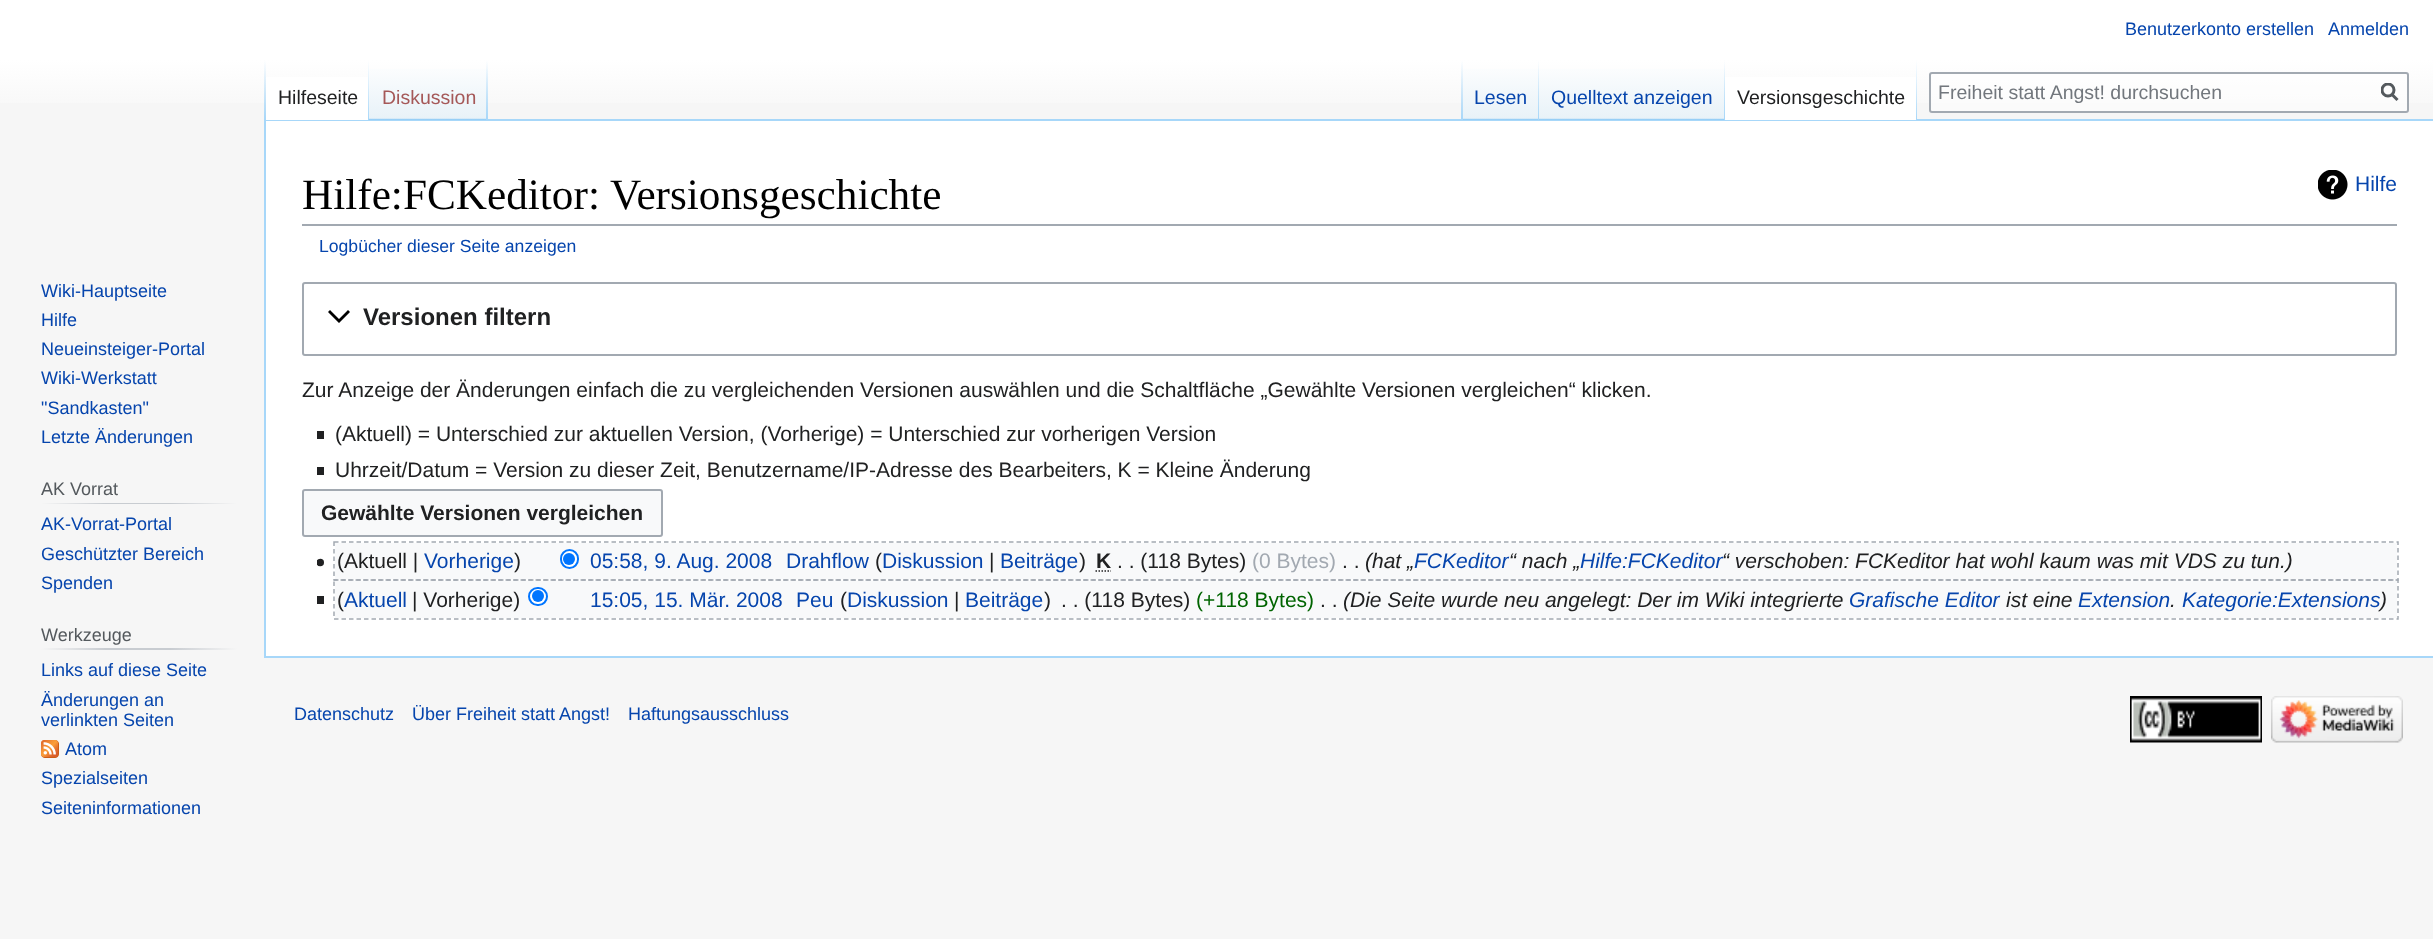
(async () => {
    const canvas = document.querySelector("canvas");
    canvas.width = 2433;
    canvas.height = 939;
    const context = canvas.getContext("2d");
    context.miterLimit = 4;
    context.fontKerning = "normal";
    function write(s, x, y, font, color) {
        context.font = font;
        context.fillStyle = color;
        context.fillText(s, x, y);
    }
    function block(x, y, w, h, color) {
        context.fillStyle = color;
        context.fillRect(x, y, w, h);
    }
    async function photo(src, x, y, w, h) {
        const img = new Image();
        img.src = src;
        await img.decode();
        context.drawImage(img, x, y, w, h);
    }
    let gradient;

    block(0, 0, 2433, 939, "rgb(246, 246, 246)");
    gradient = context.createLinearGradient(1217, 0, 1217, 120);
    gradient.addColorStop(0.5, "rgb(255, 255, 255)");
    gradient.addColorStop(1, "rgb(246, 246, 246)");
    context.fillStyle = gradient;
    context.fillRect(0, 0, 2433, 103);
    write("Benutzerkonto erstellen", 2125, 35, "18px Liberation Sans", "rgb(6, 69, 173)");
    write("Anmelden", 2328, 35, "18px Liberation Sans", "rgb(6, 69, 173)");
    block(264, 119, 2169, 2, "rgb(167, 215, 249)");
    block(264, 656, 2169, 2, "rgb(167, 215, 249)");
    block(264, 119, 2, 538, "rgb(167, 215, 249)");
    gradient = context.createLinearGradient(265, 60, 265, 120);
    gradient.addColorStop(0, "rgba(167, 215, 249, 0)");
    gradient.addColorStop(1, "rgb(167, 215, 249)");
    context.fillStyle = gradient;
    context.fillRect(264, 60, 2, 60);
    block(266, 77, 102, 43, "rgb(255, 255, 255)");
    gradient = context.createLinearGradient(368, 60, 368, 120);
    gradient.addColorStop(0, "rgb(255, 255, 255)");
    gradient.addColorStop(1, "rgb(167, 215, 249)");
    context.fillStyle = gradient;
    context.fillRect(368, 60, 1, 60);
    write("Hilfeseite", 278, 104, "19.5px Liberation Sans", "rgb(32, 33, 34)");
    gradient = context.createLinearGradient(428, 120, 428, 60);
    gradient.addColorStop(0, "rgb(119, 193, 246)");
    gradient.addColorStop(0.03, "rgb(232, 242, 248)");
    gradient.addColorStop(1, "rgb(255, 255, 255)");
    context.fillStyle = gradient;
    context.fillRect(369, 69, 119, 51);
    gradient = context.createLinearGradient(487, 60, 487, 120);
    gradient.addColorStop(0, "rgba(167, 215, 249, 0)");
    gradient.addColorStop(1, "rgb(167, 215, 249)");
    context.fillStyle = gradient;
    context.fillRect(486, 60, 2, 60);
    write("Diskussion", 382, 104, "19.5px Liberation Sans", "rgb(165, 88, 88)");
    gradient = context.createLinearGradient(1462, 60, 1462, 120);
    gradient.addColorStop(0, "rgba(167, 215, 249, 0)");
    gradient.addColorStop(1, "rgb(167, 215, 249)");
    context.fillStyle = gradient;
    context.fillRect(1461, 60, 2, 60);
    gradient = context.createLinearGradient(1501, 120, 1501, 60);
    gradient.addColorStop(0, "rgb(119, 193, 246)");
    gradient.addColorStop(0.03, "rgb(232, 242, 248)");
    gradient.addColorStop(1, "rgb(255, 255, 255)");
    context.fillStyle = gradient;
    context.fillRect(1463, 69, 76, 51);
    gradient = context.createLinearGradient(1538, 60, 1538, 120);
    gradient.addColorStop(0, "rgba(167, 215, 249, 0)");
    gradient.addColorStop(1, "rgb(167, 215, 249)");
    context.fillStyle = gradient;
    context.fillRect(1538, 60, 1, 60);
    write("Lesen", 1474, 104, "19.5px Liberation Sans", "rgb(6, 69, 173)");
    gradient = context.createLinearGradient(1632, 120, 1632, 60);
    gradient.addColorStop(0, "rgb(119, 193, 246)");
    gradient.addColorStop(0.03, "rgb(232, 242, 248)");
    gradient.addColorStop(1, "rgb(255, 255, 255)");
    context.fillStyle = gradient;
    context.fillRect(1539, 69, 186, 51);
    gradient = context.createLinearGradient(1724, 60, 1724, 120);
    gradient.addColorStop(0, "rgba(167, 215, 249, 0)");
    gradient.addColorStop(1, "rgb(167, 215, 249)");
    context.fillStyle = gradient;
    context.fillRect(1724, 60, 1, 60);
    write("Quelltext anzeigen", 1551, 104, "19.5px Liberation Sans", "rgb(6, 69, 173)");
    block(1725, 77, 191, 43, "rgb(255, 255, 255)");
    gradient = context.createLinearGradient(1916, 60, 1916, 120);
    gradient.addColorStop(0, "rgb(255, 255, 255)");
    gradient.addColorStop(1, "rgb(167, 215, 249)");
    context.fillStyle = gradient;
    context.fillRect(1916, 60, 1, 60);
    write("Versionsgeschichte", 1737, 104, "19.5px Liberation Sans", "rgb(32, 33, 34)");
    context.fillStyle = "rgba(255, 255, 255, 0.5)";
    context.beginPath();
    context.roundRect(1930, 73, 478, 39, 2);
    context.fill();
    context.strokeStyle = "rgb(162, 169, 177)";
    context.lineWidth = 2;
    context.stroke();
    write("Freiheit statt Angst! durchsuchen", 1938, 99, "19.5px Liberation Sans", "rgb(114, 119, 125)");
    context.beginPath();
    context.moveTo(2397.5, 100);
    context.lineTo(2391.5, 94);
    context.strokeStyle = "rgb(84, 89, 93)";
    context.lineWidth = 3;
    context.stroke();
    context.save();
    context.beginPath();
    context.rect(2381, 83, 18, 19);
    context.clip();
    context.beginPath();
    context.arc(2388, 90, 6, 0, Math.PI * 2);
    context.stroke();
    context.restore();
    write("Wiki-Hauptseite", 41, 297, "18px Liberation Sans", "rgb(6, 69, 173)");
    write("Hilfe", 41, 326, "18px Liberation Sans", "rgb(6, 69, 173)");
    write("Neueinsteiger-Portal", 41, 355, "18px Liberation Sans", "rgb(6, 69, 173)");
    write("Wiki-Werkstatt", 41, 384, "18px Liberation Sans", "rgb(6, 69, 173)");
    write("\"Sandkasten\"", 41, 414, "18px Liberation Sans", "rgb(6, 69, 173)");
    write("Letzte Änderungen", 41, 443, "18px Liberation Sans", "rgb(6, 69, 173)");
    gradient = context.createLinearGradient(41, 503, 237, 503);
    gradient.addColorStop(0, "rgb(246, 246, 246)");
    gradient.addColorStop(0.33, "rgb(200, 204, 209)");
    gradient.addColorStop(0.66, "rgb(200, 204, 209)");
    gradient.addColorStop(1, "rgb(246, 246, 246)");
    context.fillStyle = gradient;
    context.fillRect(41, 503, 196, 1);
    write("AK Vorrat", 41, 495, "18px Liberation Sans", "rgb(84, 89, 93)");
    write("AK-Vorrat-Portal", 41, 530, "18px Liberation Sans", "rgb(6, 69, 173)");
    write("Geschützter Bereich", 41, 560, "18px Liberation Sans", "rgb(6, 69, 173)");
    write("Spenden", 41, 589, "18px Liberation Sans", "rgb(6, 69, 173)");
    gradient = context.createLinearGradient(41, 649, 237, 649);
    gradient.addColorStop(0, "rgb(246, 246, 246)");
    gradient.addColorStop(0.33, "rgb(200, 204, 209)");
    gradient.addColorStop(0.66, "rgb(200, 204, 209)");
    gradient.addColorStop(1, "rgb(246, 246, 246)");
    context.fillStyle = gradient;
    context.fillRect(41, 648, 196, 2);
    write("Werkzeuge", 41, 641, "18px Liberation Sans", "rgb(84, 89, 93)");
    write("Links auf diese Seite", 41, 676, "18px Liberation Sans", "rgb(6, 69, 173)");
    write("Änderungen an", 41, 706, "18px Liberation Sans", "rgb(6, 69, 173)");
    write("verlinkten Seiten", 41, 726, "18px Liberation Sans", "rgb(6, 69, 173)");
    await photo("media/1.png", 41, 740, 18, 18);
    write("Atom", 65, 755, "18px Liberation Sans", "rgb(6, 69, 173)");
    write("Spezialseiten", 41, 784, "18px Liberation Sans", "rgb(6, 69, 173)");
    write("Seiteninformationen", 41, 814, "18px Liberation Sans", "rgb(6, 69, 173)");
    block(266, 121, 2167, 535, "rgb(255, 255, 255)");
    block(302, 224, 2095, 2, "rgb(162, 169, 177)");
    write("Hilfe:FCKeditor: Versionsgeschichte", 302, 209, "43.25px Liberation Serif", "rgb(0, 0, 0)");
    await photo("media/2.png", 2318, 170, 30, 30);
    write("Hilfe", 2355, 191, "21px Liberation Sans", "rgb(6, 69, 173)");
    write("Logbücher dieser Seite anzeigen", 319, 252, "17.6px Liberation Sans", "rgb(6, 69, 173)");
    context.beginPath();
    context.roundRect(303, 283, 2093, 72, 2);
    context.strokeStyle = "rgb(162, 169, 177)";
    context.lineWidth = 2;
    context.stroke();
    context.fillStyle = "rgb(0, 0, 0)";
    context.beginPath();
    context.moveTo(348, 310);
    context.lineTo(339, 319);
    context.lineTo(330, 310);
    context.lineTo(328, 312);
    context.lineTo(339, 323);
    context.lineTo(350, 312);
    context.closePath();
    context.fill();
    write("Versionen filtern", 363, 325, "bold 24px Liberation Sans", "rgb(32, 33, 34)");
    write("Zur Anzeige der Änderungen einfach die zu vergleichenden Versionen auswählen und die Schaltfläche „Gewählte Versionen vergleichen“ klicken.", 302, 397, "21px Liberation Sans", "rgb(32, 33, 34)");
    block(317, 431, 7, 8, "rgb(32, 33, 34)");
    write("(Aktuell) = Unterschied zur aktuellen Version, (Vorherige) = Unterschied zur vorherigen Version", 335, 441, "21px Liberation Sans", "rgb(32, 33, 34)");
    block(317, 467, 7, 8, "rgb(32, 33, 34)");
    write("Uhrzeit/Datum = Version zu dieser Zeit, Benutzername/IP-Adresse des Bearbeiters, K = Kleine Änderung", 335, 477, "21px Liberation Sans", "rgb(32, 33, 34)");
    context.fillStyle = "rgb(248, 249, 250)";
    context.beginPath();
    context.roundRect(303, 490, 359, 46, 2);
    context.fill();
    context.stroke();
    write("Gewählte Versionen vergleichen", 321, 520, "bold 21px Liberation Sans", "rgb(32, 33, 34)");
    block(335, 543, 2062, 36, "rgb(248, 249, 250)");
    await photo("media/3.png", 317, 558, 7, 9);
    write("(Aktuell |", 337, 568, "21px Liberation Sans", "rgb(32, 33, 34)");
    write("Vorherige", 424, 568, "21px Liberation Sans", "rgb(6, 69, 173)");
    write(")", 514, 568, "21px Liberation Sans", "rgb(32, 33, 34)");
    context.fillStyle = "rgb(255, 255, 255)";
    context.beginPath();
    context.roundRect(561, 550, 17, 18, 8.5);
    context.fill();
    context.strokeStyle = "rgb(0, 117, 255)";
    context.stroke();
    context.fillStyle = "rgb(0, 117, 255)";
    context.beginPath();
    context.arc(569, 559, 6, 0, Math.PI * 2);
    context.fill();
    write("05:58, 9. Aug. 2008", 590, 568, "21px Liberation Sans", "rgb(6, 69, 173)");
    write("Drahflow", 786, 568, "21px Liberation Sans", "rgb(6, 69, 173)");
    write("(", 875, 568, "21px Liberation Sans", "rgb(32, 33, 34)");
    write("Diskussion", 882, 568, "21px Liberation Sans", "rgb(6, 69, 173)");
    write("|", 989, 568, "21px Liberation Sans", "rgb(32, 33, 34)");
    write("Beiträge", 1000, 568, "21px Liberation Sans", "rgb(6, 69, 173)");
    write(")", 1079, 568, "21px Liberation Sans", "rgb(32, 33, 34)");
    write("K", 1096, 568, "bold 21px Liberation Sans", "rgb(32, 33, 34)");
    context.beginPath();
    context.moveTo(1095.5, 571);
    context.lineTo(1111, 571);
    context.strokeStyle = "rgb(32, 33, 34)";
    context.lineWidth = 1.5;
    context.setLineDash([1.5, 1.5]);
    context.stroke();
    write(". . (118 Bytes)", 1117, 568, "21px Liberation Sans", "rgb(32, 33, 34)");
    write(". .", 1342, 568, "21px Liberation Sans", "rgb(32, 33, 34)");
    write("(hat „", 1365, 568, "italic 21px Liberation Sans", "rgb(32, 33, 34)");
    write("FCKeditor", 1414, 568, "italic 21px Liberation Sans", "rgb(6, 69, 173)");
    write("“ nach „", 1509, 568, "italic 21px Liberation Sans", "rgb(32, 33, 34)");
    write("Hilfe:FCKeditor", 1580, 568, "italic 21px Liberation Sans", "rgb(6, 69, 173)");
    write("“ verschoben: FCKeditor hat wohl kaum was mit VDS zu tun.)", 1722, 568, "italic 21px Liberation Sans", "rgb(32, 33, 34)");
    context.beginPath();
    context.moveTo(334, 542);
    context.lineTo(2398, 542);
    context.lineTo(2398, 580);
    context.lineTo(334, 580);
    context.closePath();
    context.strokeStyle = "rgb(162, 169, 177)";
    context.setLineDash([4.5, 3]);
    context.stroke();
    write("(0 Bytes)", 1252, 568, "21px Liberation Sans", "rgb(162, 169, 177)");
    block(335, 581, 2062, 37, "rgb(248, 249, 250)");
    block(317, 596, 7, 8, "rgb(32, 33, 34)");
    write("(", 337, 607, "21px Liberation Sans", "rgb(32, 33, 34)");
    write("Aktuell", 344, 607, "21px Liberation Sans", "rgb(6, 69, 173)");
    write("| Vorherige)", 412, 607, "21px Liberation Sans", "rgb(32, 33, 34)");
    context.fillStyle = "rgb(255, 255, 255)";
    context.beginPath();
    context.roundRect(529, 588, 18, 17, 8.5);
    context.fill();
    context.strokeStyle = "rgb(0, 117, 255)";
    context.lineWidth = 2;
    context.setLineDash([]);
    context.stroke();
    context.fillStyle = "rgb(0, 117, 255)";
    context.beginPath();
    context.arc(538, 596, 6, 0, Math.PI * 2);
    context.fill();
    write("15:05, 15. Mär. 2008", 590, 607, "21px Liberation Sans", "rgb(6, 69, 173)");
    write("Peu", 796, 607, "21px Liberation Sans", "rgb(6, 69, 173)");
    write("(", 840, 607, "21px Liberation Sans", "rgb(32, 33, 34)");
    write("Diskussion", 847, 607, "21px Liberation Sans", "rgb(6, 69, 173)");
    write("|", 954, 607, "21px Liberation Sans", "rgb(32, 33, 34)");
    write("Beiträge", 965, 607, "21px Liberation Sans", "rgb(6, 69, 173)");
    write(")", 1044, 607, "21px Liberation Sans", "rgb(32, 33, 34)");
    write(". . (118 Bytes)", 1061, 607, "21px Liberation Sans", "rgb(32, 33, 34)");
    write("(+118 Bytes)", 1196, 607, "21px Liberation Sans", "rgb(0, 100, 0)");
    write(". .", 1320, 607, "21px Liberation Sans", "rgb(32, 33, 34)");
    write("(Die Seite wurde neu angelegt: Der im Wiki integrierte", 1343, 607, "italic 21px Liberation Sans", "rgb(32, 33, 34)");
    write("Grafische Editor", 1849, 607, "italic 21px Liberation Sans", "rgb(6, 69, 173)");
    write("ist eine", 2006, 607, "italic 21px Liberation Sans", "rgb(32, 33, 34)");
    write("Extension", 2078, 607, "italic 21px Liberation Sans", "rgb(6, 69, 173)");
    write(".", 2170, 607, "italic 21px Liberation Sans", "rgb(32, 33, 34)");
    write("Kategorie:Extensions", 2182, 607, "italic 21px Liberation Sans", "rgb(6, 69, 173)");
    write(")", 2380, 607, "italic 21px Liberation Sans", "rgb(32, 33, 34)");
    context.beginPath();
    context.moveTo(334, 580);
    context.lineTo(2398, 580);
    context.lineTo(2398, 619);
    context.lineTo(334, 619);
    context.closePath();
    context.strokeStyle = "rgb(162, 169, 177)";
    context.lineWidth = 1.5;
    context.setLineDash([4.5, 3]);
    context.stroke();
    write("Datenschutz", 294, 720, "18px Liberation Sans", "rgb(6, 69, 173)");
    write("Über Freiheit statt Angst!", 412, 720, "18px Liberation Sans", "rgb(6, 69, 173)");
    write("Haftungsausschluss", 628, 720, "18px Liberation Sans", "rgb(6, 69, 173)");
    await photo("media/4.png", 2130, 696, 132, 47);
    await photo("media/5.png", 2271, 696, 132, 47);
})();
